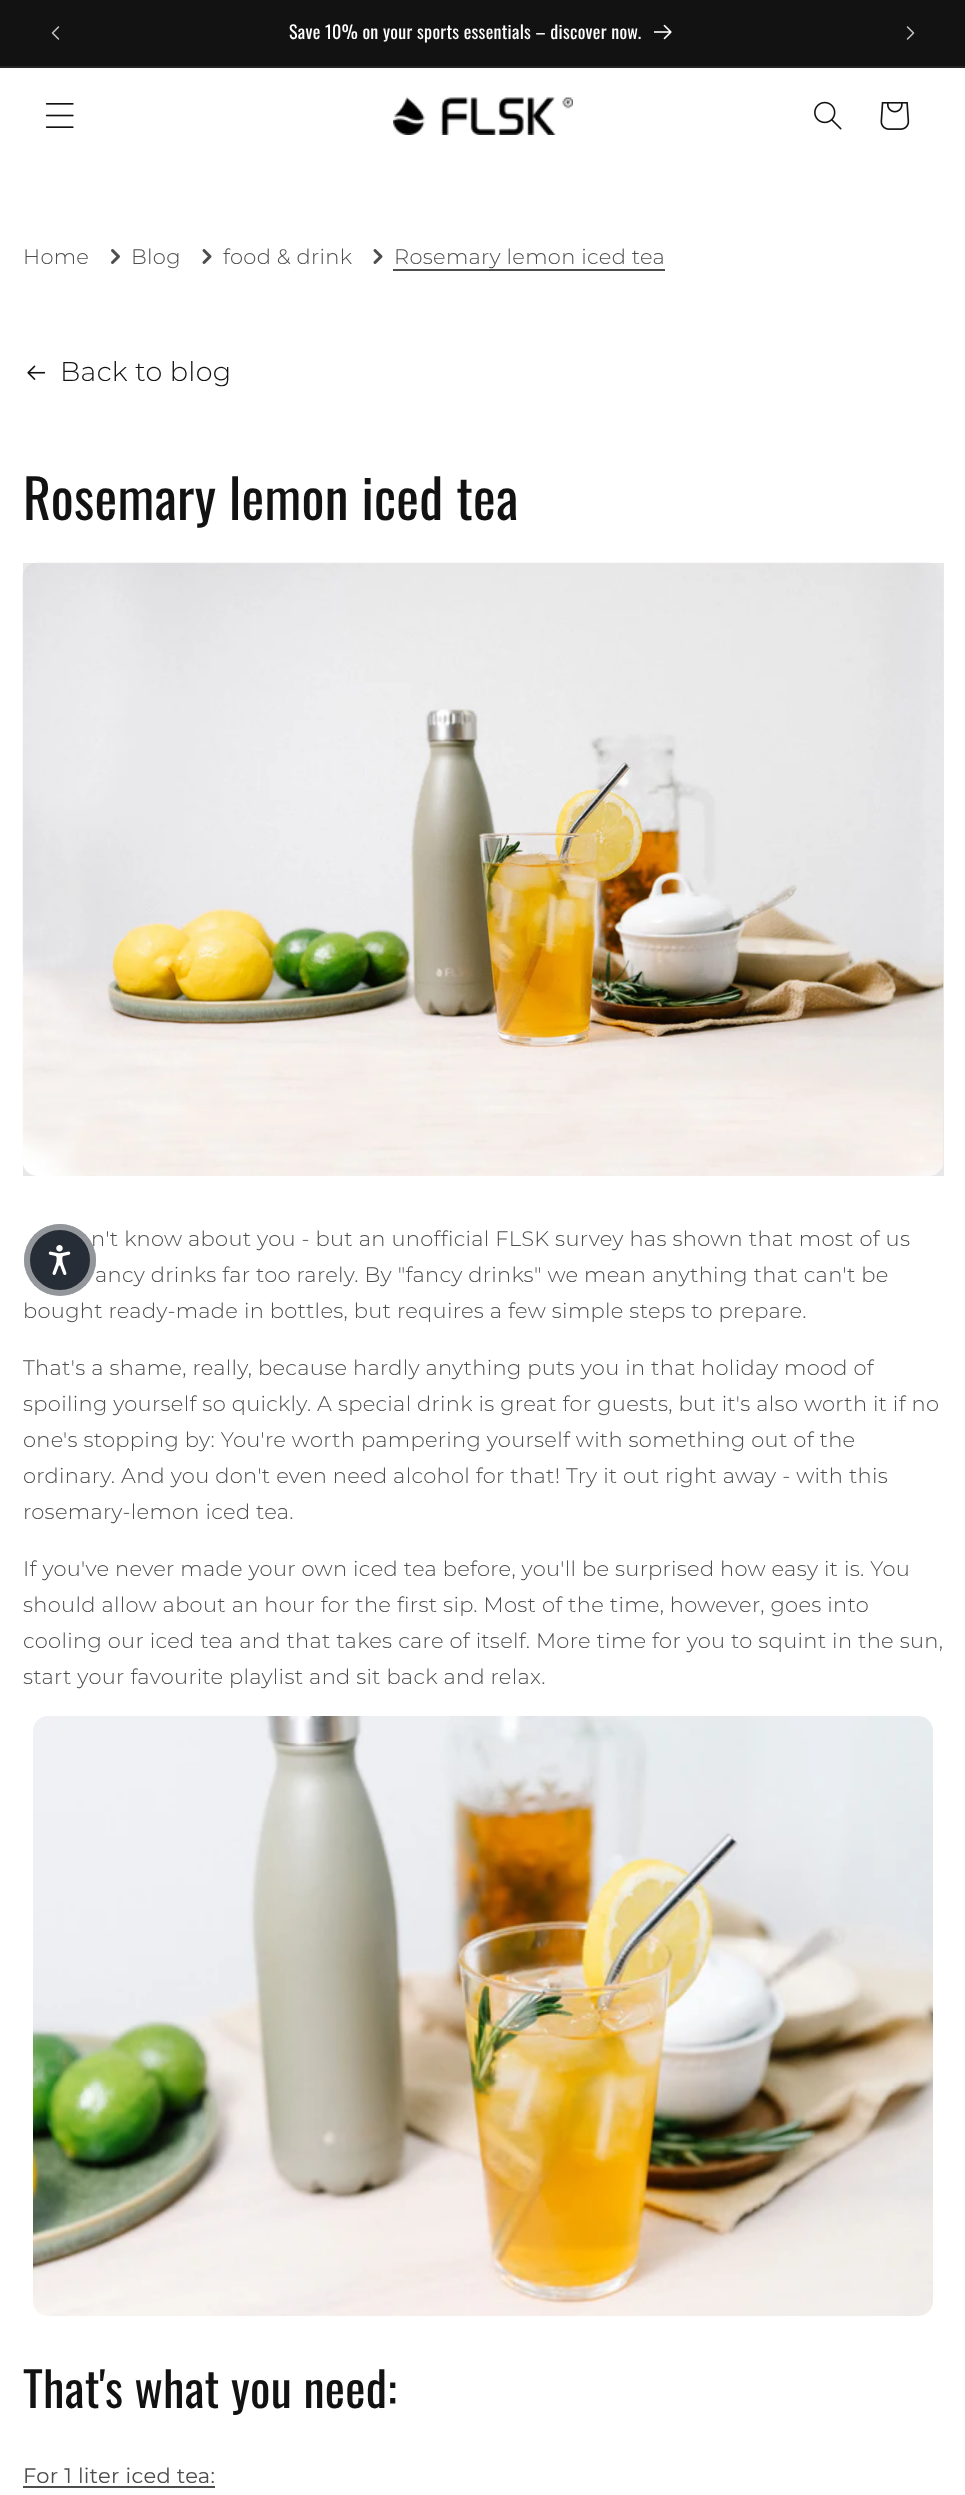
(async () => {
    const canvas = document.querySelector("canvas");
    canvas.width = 965;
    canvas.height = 2495;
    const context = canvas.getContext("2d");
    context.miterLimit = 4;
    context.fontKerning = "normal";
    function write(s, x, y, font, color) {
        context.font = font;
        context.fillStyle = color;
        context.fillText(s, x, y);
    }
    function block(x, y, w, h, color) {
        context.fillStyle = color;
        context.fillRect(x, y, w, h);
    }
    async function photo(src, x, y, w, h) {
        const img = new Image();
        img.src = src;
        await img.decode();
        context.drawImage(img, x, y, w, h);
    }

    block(0, 0, 965, 2495, "rgb(255, 255, 255)");
    block(0, 0, 965, 66, "rgb(18, 18, 18)");
    block(0, 66, 965, 2, "rgb(37, 37, 37)");
    await photo("media/1.png", 51, 26, 9, 14);
    context.letterSpacing = "0.3px";
    write("Save 10% on your sports essentials – discover now.", 289, 39, "18px Oswald", "rgb(255, 255, 255)");
    await photo("media/2.png", 654, 24, 18, 16);
    await photo("media/3.png", 906, 26, 9, 14);
    await photo("media/4.png", 45, 103, 29, 25);
    await photo("media/5.png", 393, 97, 180, 38);
    await photo("media/6.png", 814, 101, 28, 29);
    await photo("media/7.png", 880, 102, 30, 28);
    write("Home", 23, 264, "300 21px Montserrat", "rgb(77, 77, 77)");
    await photo("media/8.png", 111, 249, 9, 15);
    write("Blog", 131, 264, "300 21px Montserrat", "rgb(77, 77, 77)");
    await photo("media/9.png", 202, 249, 10, 15);
    write("food & drink", 223, 264, "300 21px Montserrat", "rgb(77, 77, 77)");
    await photo("media/9.png", 373, 249, 10, 15);
    write("Rosemary lemon iced tea", 394, 264, "300 21px Montserrat", "rgb(77, 77, 77)");
    block(393, 269, 272, 2, "rgb(77, 77, 77)");
    await photo("media/10.png", 27, 365, 18, 15);
    write("Back to blog", 60, 381, "300 27px Montserrat", "rgb(18, 18, 18)");
    write("Rosemary lemon iced tea", 23, 520, "54px Oswald", "rgb(18, 18, 18)");
    block(23, 563, 921, 613, "rgb(232, 232, 232)");
    await photo("media/11.png", 22, 562, 922, 614);
    write("n't know about you - but an unofficial FLSK survey has shown that most of us", 91, 1246, "300 21px Montserrat", "rgb(77, 77, 77)");
    write("ancy drinks far too rarely. By \"fancy drinks\" we mean anything that can't be", 95, 1282, "300 21px Montserrat", "rgb(77, 77, 77)");
    write("bought ready-made in bottles, but requires a few simple steps to prepare.", 23, 1318, "300 21px Montserrat", "rgb(77, 77, 77)");
    write("That's a shame, really, because hardly anything puts you in that holiday mood of", 23, 1375, "300 21px Montserrat", "rgb(77, 77, 77)");
    write("spoiling yourself so quickly. A special drink is great for guests, but it's also worth it if no", 23, 1411, "300 21px Montserrat", "rgb(77, 77, 77)");
    write("one's stopping by: You're worth pampering yourself with something out of the", 23, 1447, "300 21px Montserrat", "rgb(77, 77, 77)");
    write("ordinary. And you don't even need alcohol for that! Try it out right away - with this", 23, 1483, "300 21px Montserrat", "rgb(77, 77, 77)");
    write("rosemary-lemon iced tea.", 23, 1519, "300 21px Montserrat", "rgb(77, 77, 77)");
    write("If you've never made your own iced tea before, you'll be surprised how easy it is. You", 23, 1576, "300 21px Montserrat", "rgb(77, 77, 77)");
    write("should allow about an hour for the first sip. Most of the time, however, goes into", 23, 1612, "300 21px Montserrat", "rgb(77, 77, 77)");
    write("cooling our iced tea and that takes care of itself. More time for you to squint in the sun,", 23, 1648, "300 21px Montserrat", "rgb(77, 77, 77)");
    write("start your favourite playlist and sit back and relax.", 23, 1684, "300 21px Montserrat", "rgb(77, 77, 77)");
    await photo("media/12.png", 33, 1716, 900, 600);
    write("That's what you need:", 23, 2408, "48px Oswald", "rgb(18, 18, 18)");
    write("For 1 liter iced tea:", 23, 2483, "100 21px Montserrat", "rgb(77, 77, 77)");
    block(23, 2486, 192, 2, "rgb(77, 77, 77)");
    context.fillStyle = "rgb(39, 45, 54)";
    context.beginPath();
    context.arc(60, 1260, 36, 0, Math.PI * 2);
    context.fill();
    context.beginPath();
    context.arc(60, 1260, 33, 0, Math.PI * 2);
    context.strokeStyle = "rgba(255, 255, 255, 0.5)";
    context.lineWidth = 6;
    context.stroke();
    await photo("media/13.png", 48, 1245, 23, 30);
})();
